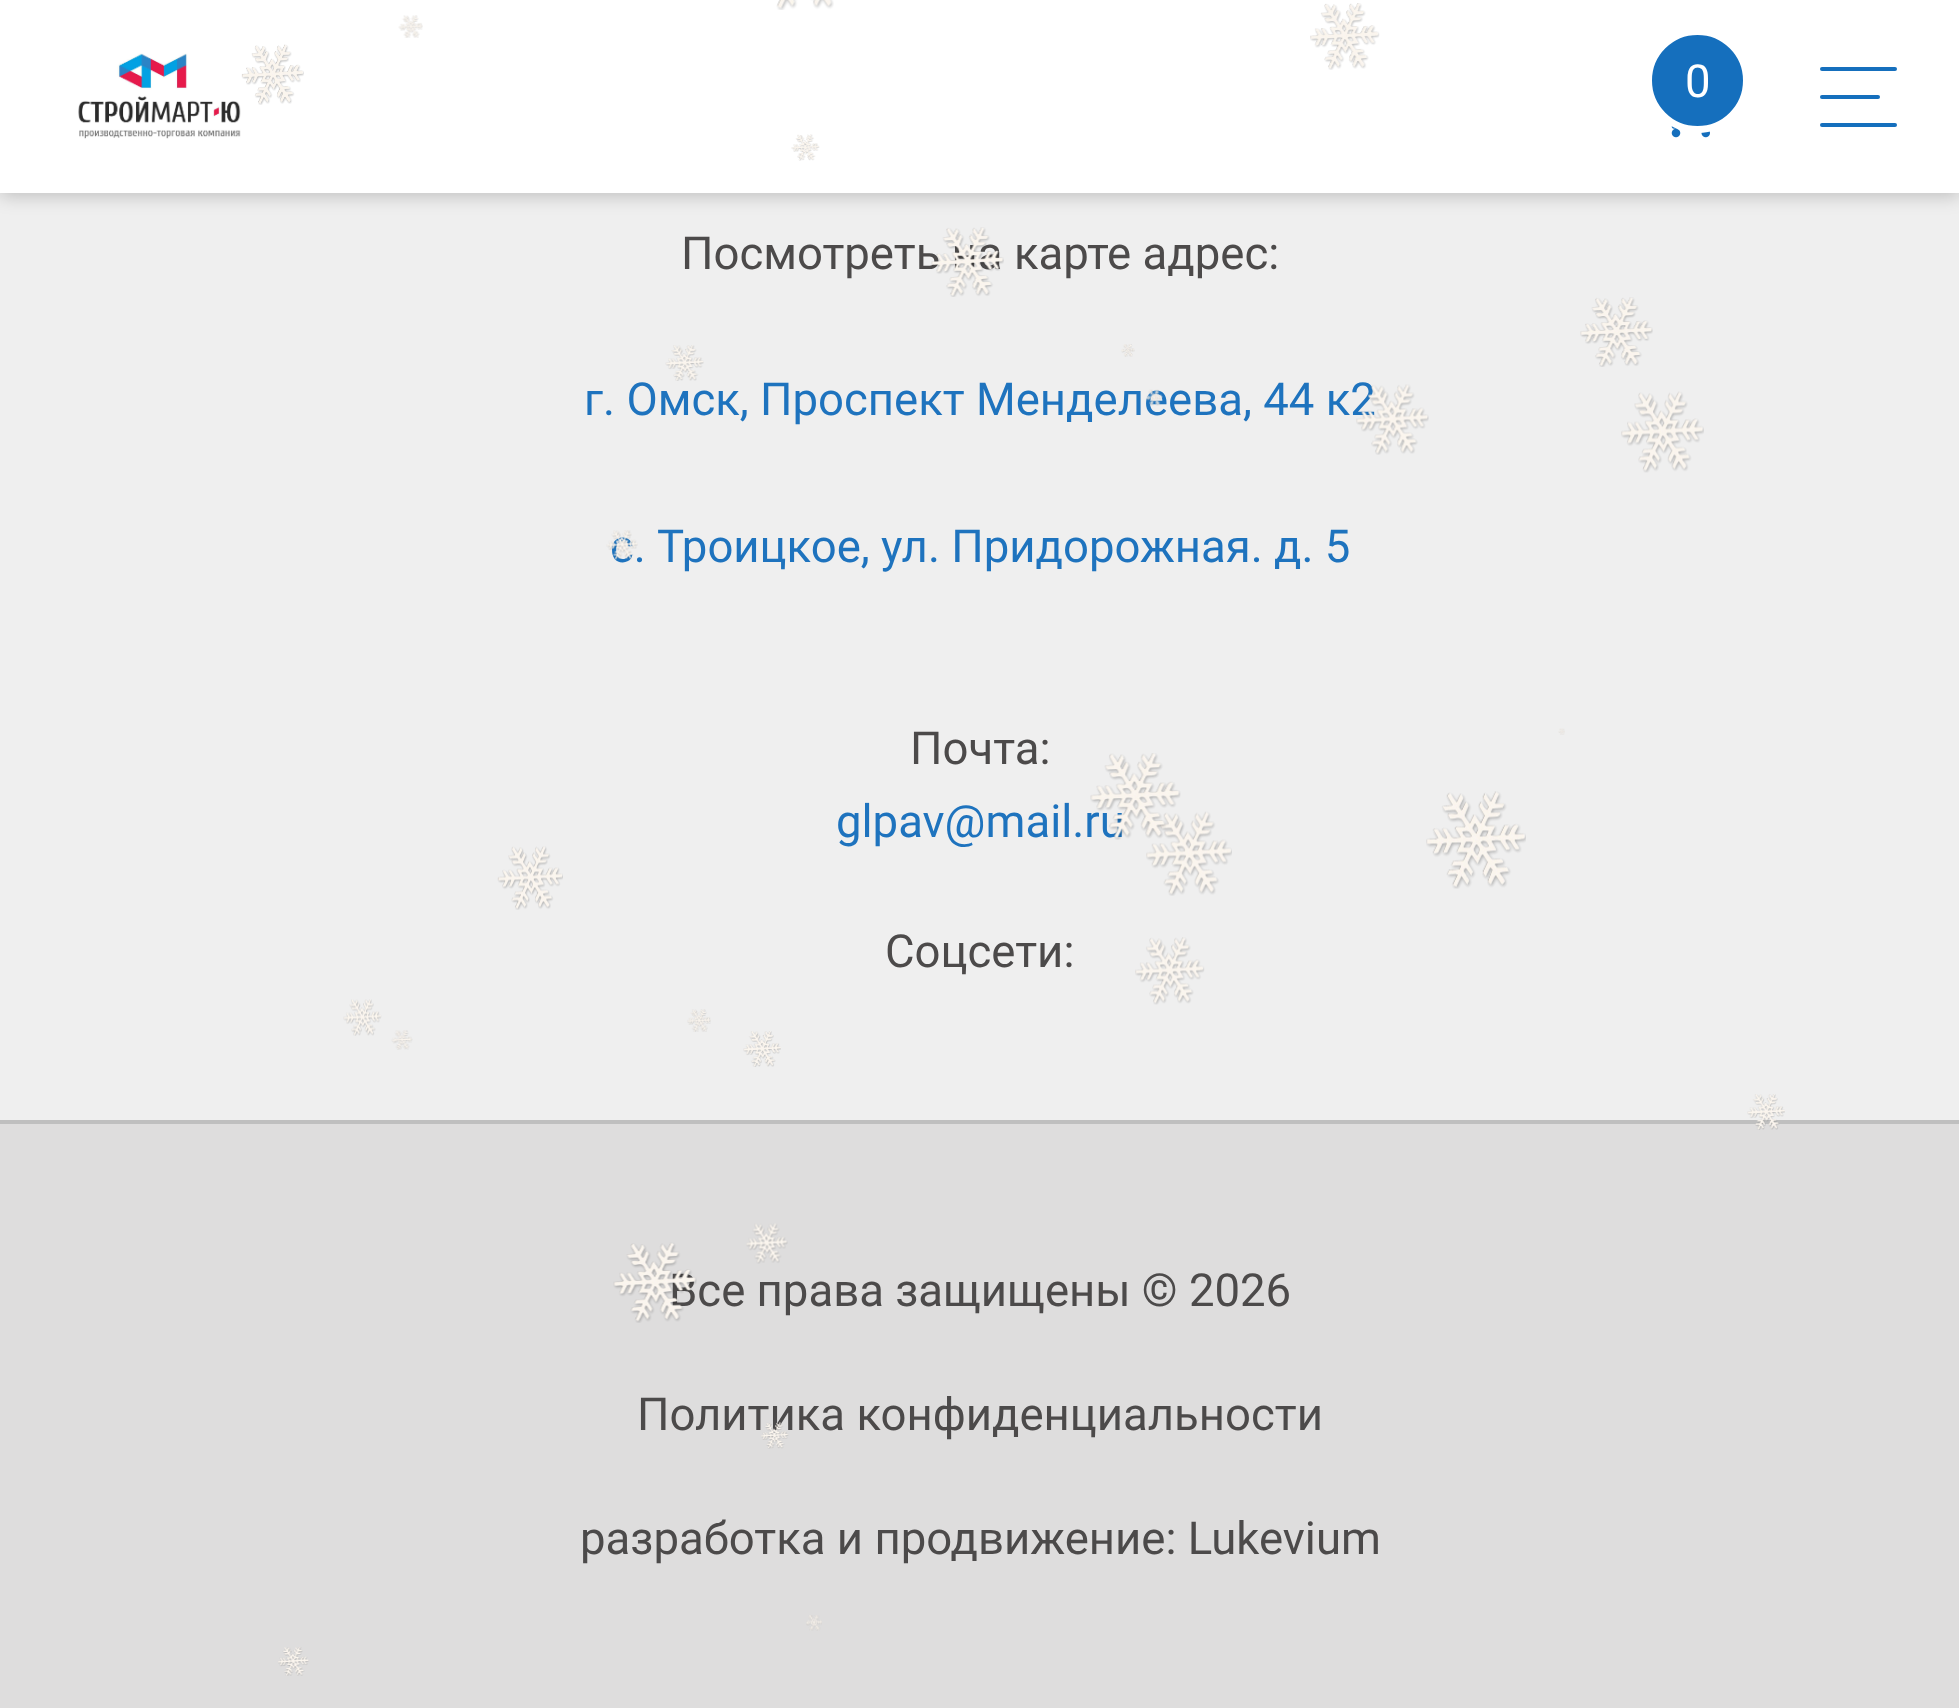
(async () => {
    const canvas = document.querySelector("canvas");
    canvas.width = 1959;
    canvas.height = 1708;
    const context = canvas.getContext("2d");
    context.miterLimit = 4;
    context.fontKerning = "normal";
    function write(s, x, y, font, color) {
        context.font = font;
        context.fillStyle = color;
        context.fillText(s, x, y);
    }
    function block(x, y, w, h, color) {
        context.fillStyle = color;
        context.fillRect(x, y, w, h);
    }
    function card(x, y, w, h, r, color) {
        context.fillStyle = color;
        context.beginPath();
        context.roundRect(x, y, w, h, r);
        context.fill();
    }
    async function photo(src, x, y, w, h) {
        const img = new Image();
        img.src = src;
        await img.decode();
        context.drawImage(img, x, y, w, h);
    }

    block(0, 0, 1959, 1708, "rgb(239, 239, 239)");
    context.fillStyle = "rgba(0, 0, 0, 0.2)";
    context.filter = "blur(9px)";
    context.beginPath();
    context.rect(0, 4, 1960, 192);
    context.fill();
    context.filter = "none";
    block(0, 0, 1959, 193, "rgb(255, 255, 255)");
    await photo("media/1.png", 398, 15, 25, 23);
    await photo("media/2.png", 776, 0, 58, 10);
    await photo("media/3.png", 1310, 3, 70, 67);
    await photo("media/4.png", 241, 44, 63, 61);
    await photo("media/5.png", 78, 53, 163, 86);
    card(1820, 67, 77, 4, 2, "rgb(21, 111, 189)");
    card(1820, 95, 60, 4, 2, "rgb(21, 111, 189)");
    card(1820, 123, 77, 4, 2, "rgb(21, 111, 189)");
    await photo("media/6.png", 1671, 125, 39, 13);
    context.beginPath();
    context.arc(1697.5, 80.5, 49, 0, Math.PI * 2);
    context.fill();
    context.strokeStyle = "rgb(255, 255, 255)";
    context.lineWidth = 7;
    context.stroke();
    write("0", 1685, 97, "45.5px Roboto", "rgb(255, 255, 255)");
    await photo("media/7.png", 791, 134, 29, 27);
    write("Посмотреть на карте адрес:", 681, 269, "45.5px Roboto", "rgb(76, 74, 74)");
    await photo("media/8.png", 931, 227, 73, 70);
    write("г. Омск, Проспект Менделеева, 44 к2", 584, 415, "45.5px Roboto", "rgb(30, 115, 190)");
    write("с. Троицкое, ул. Придорожная. д. 5", 610, 562, "45.5px Roboto", "rgb(30, 115, 190)");
    write("Почта:", 910, 764, "45.5px Roboto", "rgb(76, 74, 74)");
    write("glpav@mail.ru", 836, 837, "45.5px Roboto", "rgb(30, 115, 190)");
    write("Cоцсети:", 885, 967, "45.5px Roboto", "rgb(76, 74, 74)");
    await photo("media/9.png", 1580, 297, 73, 70);
    await photo("media/10.png", 665, 345, 39, 36);
    await photo("media/11.png", 1121, 344, 14, 13);
    await photo("media/12.png", 1146, 389, 17, 17);
    await photo("media/13.png", 1356, 384, 73, 71);
    await photo("media/14.png", 1621, 391, 83, 82);
    await photo("media/15.png", 606, 530, 32, 30);
    await photo("media/16.png", 1558, 728, 7, 7);
    await photo("media/17.png", 497, 846, 66, 64);
    await photo("media/19.png", 1146, 811, 86, 85);
    await photo("media/18.png", 1090, 753, 91, 87);
    await photo("media/20.png", 1426, 791, 100, 98);
    await photo("media/21.png", 1135, 937, 70, 68);
    await photo("media/22.png", 343, 999, 39, 37);
    await photo("media/23.png", 687, 1009, 24, 23);
    await photo("media/24.png", 391, 1030, 22, 20);
    await photo("media/25.png", 743, 1031, 38, 36);
    block(0, 1124, 1959, 584, "rgb(222, 221, 221)");
    block(0, 1120, 1959, 4, "rgb(191, 191, 191)");
    await photo("media/26.png", 1747, 1094, 38, 36);
    write("Все права защищены © 2026", 669, 1306, "45.5px Roboto", "rgb(76, 74, 74)");
    await photo("media/27.png", 613, 1242, 84, 81);
    await photo("media/28.png", 746, 1223, 42, 41);
    write("Политика конфиденциальности", 637, 1430, "45.5px Roboto", "rgb(76, 74, 74)");
    write("разработка и продвижение: Lukevium", 580, 1554, "45.5px Roboto", "rgb(76, 74, 74)");
    await photo("media/29.png", 761, 1422, 28, 27);
    await photo("media/30.png", 806, 1615, 16, 16);
    await photo("media/31.png", 278, 1647, 31, 29);
})();
